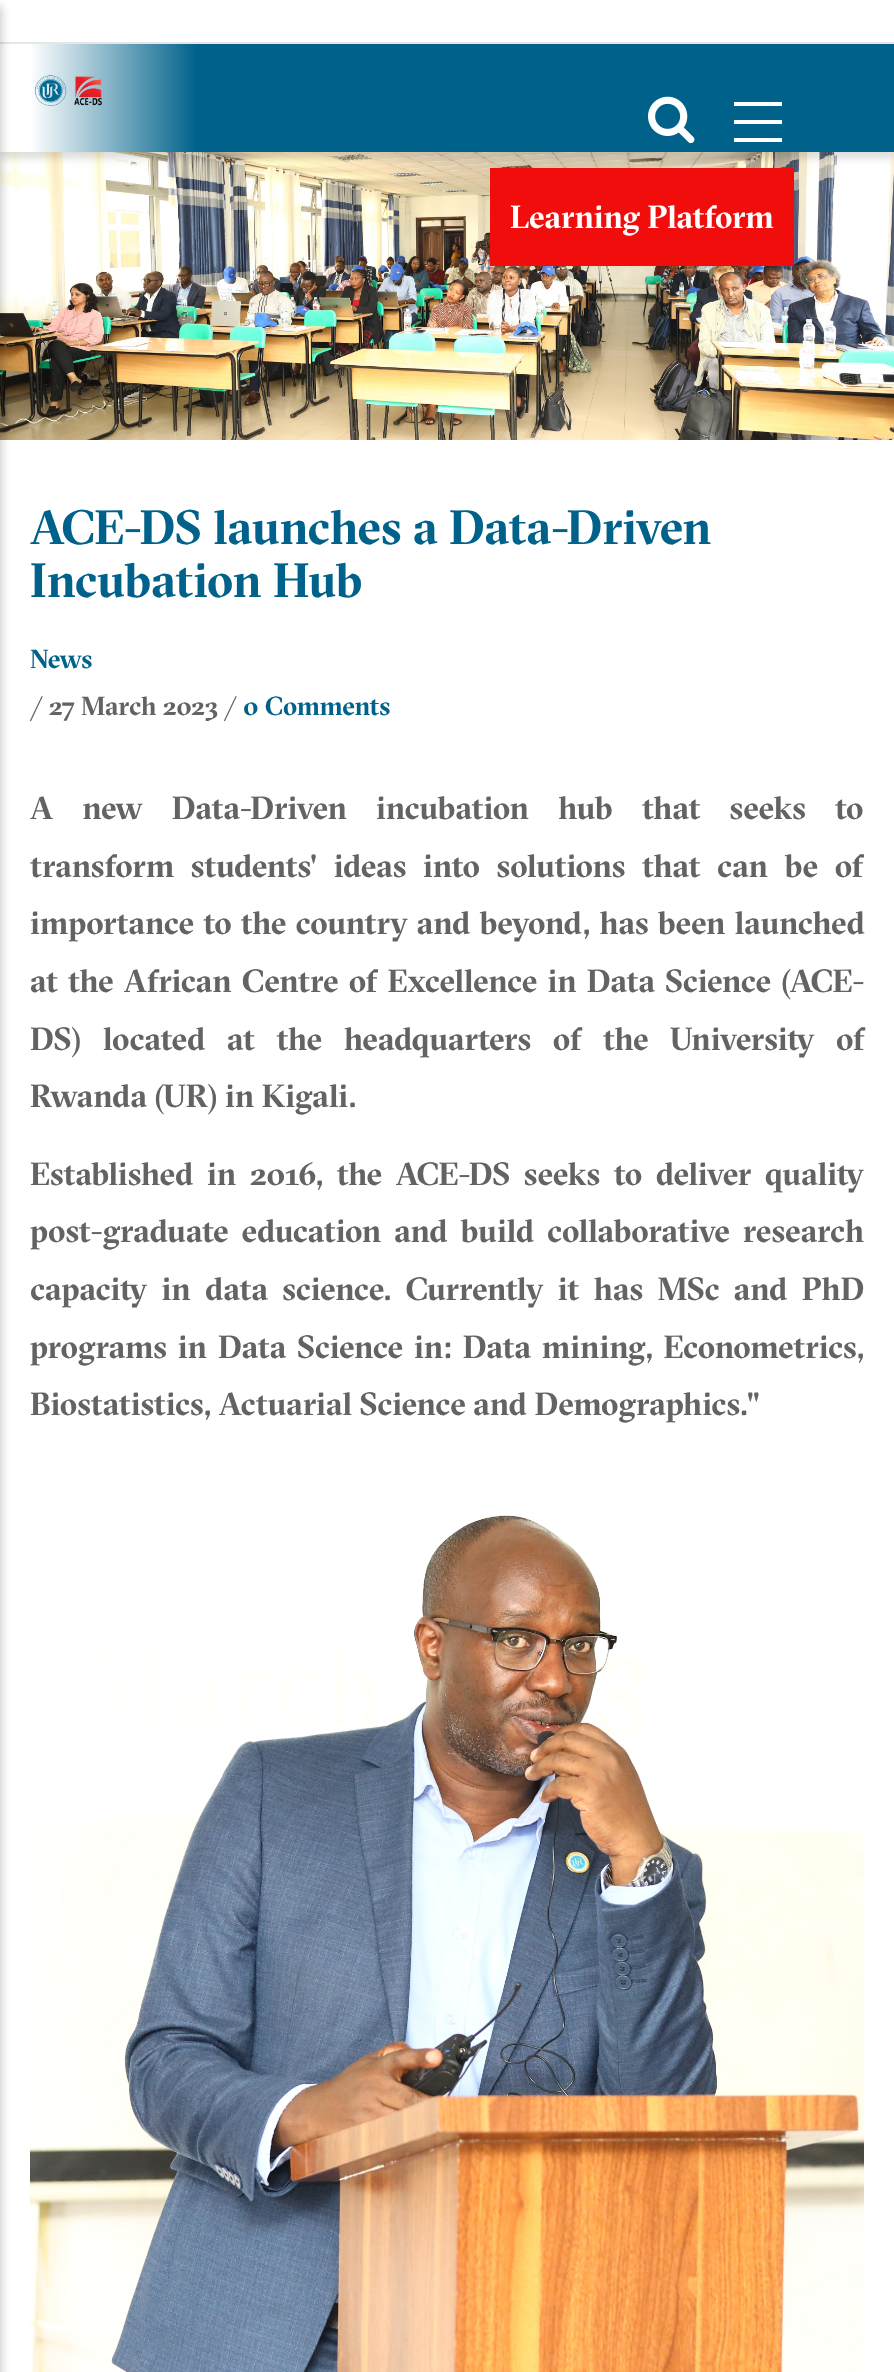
(async () => {
    const canvas = document.querySelector("canvas");
    canvas.width = 894;
    canvas.height = 2372;
    const context = canvas.getContext("2d");
    context.miterLimit = 4;
    context.fontKerning = "normal";
    function write(s, x, y, font, color) {
        context.font = font;
        context.fillStyle = color;
        context.fillText(s, x, y);
    }
    function block(x, y, w, h, color) {
        context.fillStyle = color;
        context.fillRect(x, y, w, h);
    }
    async function photo(src, x, y, w, h) {
        const img = new Image();
        img.src = src;
        await img.decode();
        context.drawImage(img, x, y, w, h);
    }
    let gradient;

    block(0, 0, 894, 2372, "rgb(255, 255, 255)");
    await photo("media/3.png", 0, 152, 894, 288);
    context.fillStyle = "rgba(0, 0, 0, 0.14)";
    context.filter = "blur(4px)";
    context.beginPath();
    context.rect(0, 8, 894, 150);
    context.fill();
    context.filter = "none";
    gradient = context.createLinearGradient(0, 77, 894, 77);
    gradient.addColorStop(0, "rgb(255, 255, 255)");
    gradient.addColorStop(0.2, "rgb(255, 255, 255)");
    gradient.addColorStop(0.4, "rgb(0, 98, 139)");
    gradient.addColorStop(1, "rgb(0, 98, 139)");
    context.fillStyle = gradient;
    context.fillRect(0, 44, 894, 108);
    block(0, 2, 894, 40, "rgb(255, 255, 255)");
    block(0, 42, 894, 2, "rgb(230, 230, 230)");
    gradient = context.createLinearGradient(30, 98, 864, 98);
    gradient.addColorStop(0, "rgb(255, 255, 255)");
    gradient.addColorStop(0.2, "rgb(0, 98, 139)");
    gradient.addColorStop(1, "rgb(0, 98, 139)");
    context.fillStyle = gradient;
    context.fillRect(32, 44, 324, 108);
    await photo("media/1.png", 34, 75, 68, 31);
    context.fillStyle = "rgba(0, 0, 0, 0.2)";
    context.filter = "blur(4px)";
    context.beginPath();
    context.rect(-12, 6, 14, 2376);
    context.fill();
    context.filter = "none";
    await photo("media/2.png", 648, 96, 47, 48);
    block(734, 102, 48, 4, "rgb(255, 255, 255)");
    block(734, 120, 48, 4, "rgb(255, 255, 255)");
    block(734, 138, 48, 4, "rgb(255, 255, 255)");
    block(490, 168, 304, 98, "rgb(242, 13, 13)");
    write("Learning Platform", 510, 228, "bold 32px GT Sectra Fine", "rgb(255, 255, 255)");
    write("ACE-DS launches a Data-Driven", 30, 544, "bold 48px GT Sectra Fine", "rgb(0, 98, 139)");
    write("Incubation Hub", 30, 597, "bold 48px GT Sectra Fine", "rgb(0, 98, 139)");
    write("News", 30, 668, "bold 26px GT Sectra Fine", "rgb(0, 98, 139)");
    write("/ 27 March 2023", 30, 715, "bold 26px GT Sectra Fine", "rgb(99, 99, 99)");
    write("/", 224, 715, "bold 26px GT Sectra Fine", "rgb(99, 99, 99)");
    write("0 Comments", 243, 715, "bold 26px GT Sectra Fine", "rgb(0, 98, 139)");
    context.wordSpacing = "21.5px";
    write("A new Data-Driven incubation hub that seeks to", 30, 819, "bold 32px GT Sectra Fine", "rgb(99, 99, 99)");
    context.wordSpacing = "9px";
    write("transform students' ideas into solutions that can be of", 30, 877, "bold 32px GT Sectra Fine", "rgb(99, 99, 99)");
    context.wordSpacing = "1.5px";
    write("importance to the country and beyond, has been launched", 30, 934, "bold 32px GT Sectra Fine", "rgb(99, 99, 99)");
    context.wordSpacing = "2.5px";
    write("at the African Centre of Excellence in Data Science (ACE-", 30, 992, "bold 32px GT Sectra Fine", "rgb(99, 99, 99)");
    context.wordSpacing = "14px";
    write("DS) located at the headquarters of the University of", 30, 1050, "bold 32px GT Sectra Fine", "rgb(99, 99, 99)");
    context.wordSpacing = "0px";
    write("Rwanda (UR) in Kigali.", 30, 1107, "bold 32px GT Sectra Fine", "rgb(99, 99, 99)");
    context.wordSpacing = "6px";
    write("Established in 2016, the ACE-DS seeks to deliver quality", 30, 1185, "bold 32px GT Sectra Fine", "rgb(99, 99, 99)");
    context.wordSpacing = "5.25px";
    write("post-graduate education and build collaborative research", 30, 1242, "bold 32px GT Sectra Fine", "rgb(99, 99, 99)");
    context.wordSpacing = "6.75px";
    write("capacity in data science. Currently it has MSc and PhD", 30, 1300, "bold 32px GT Sectra Fine", "rgb(99, 99, 99)");
    context.wordSpacing = "3.25px";
    write("programs in Data Science in: Data mining, Econometrics,", 30, 1358, "bold 32px GT Sectra Fine", "rgb(99, 99, 99)");
    context.wordSpacing = "0px";
    write("Biostatistics, Actuarial Science and Demographics.\"", 30, 1415, "bold 32px GT Sectra Fine", "rgb(99, 99, 99)");
    await photo("media/4.png", 30, 1515, 834, 857);
})();
